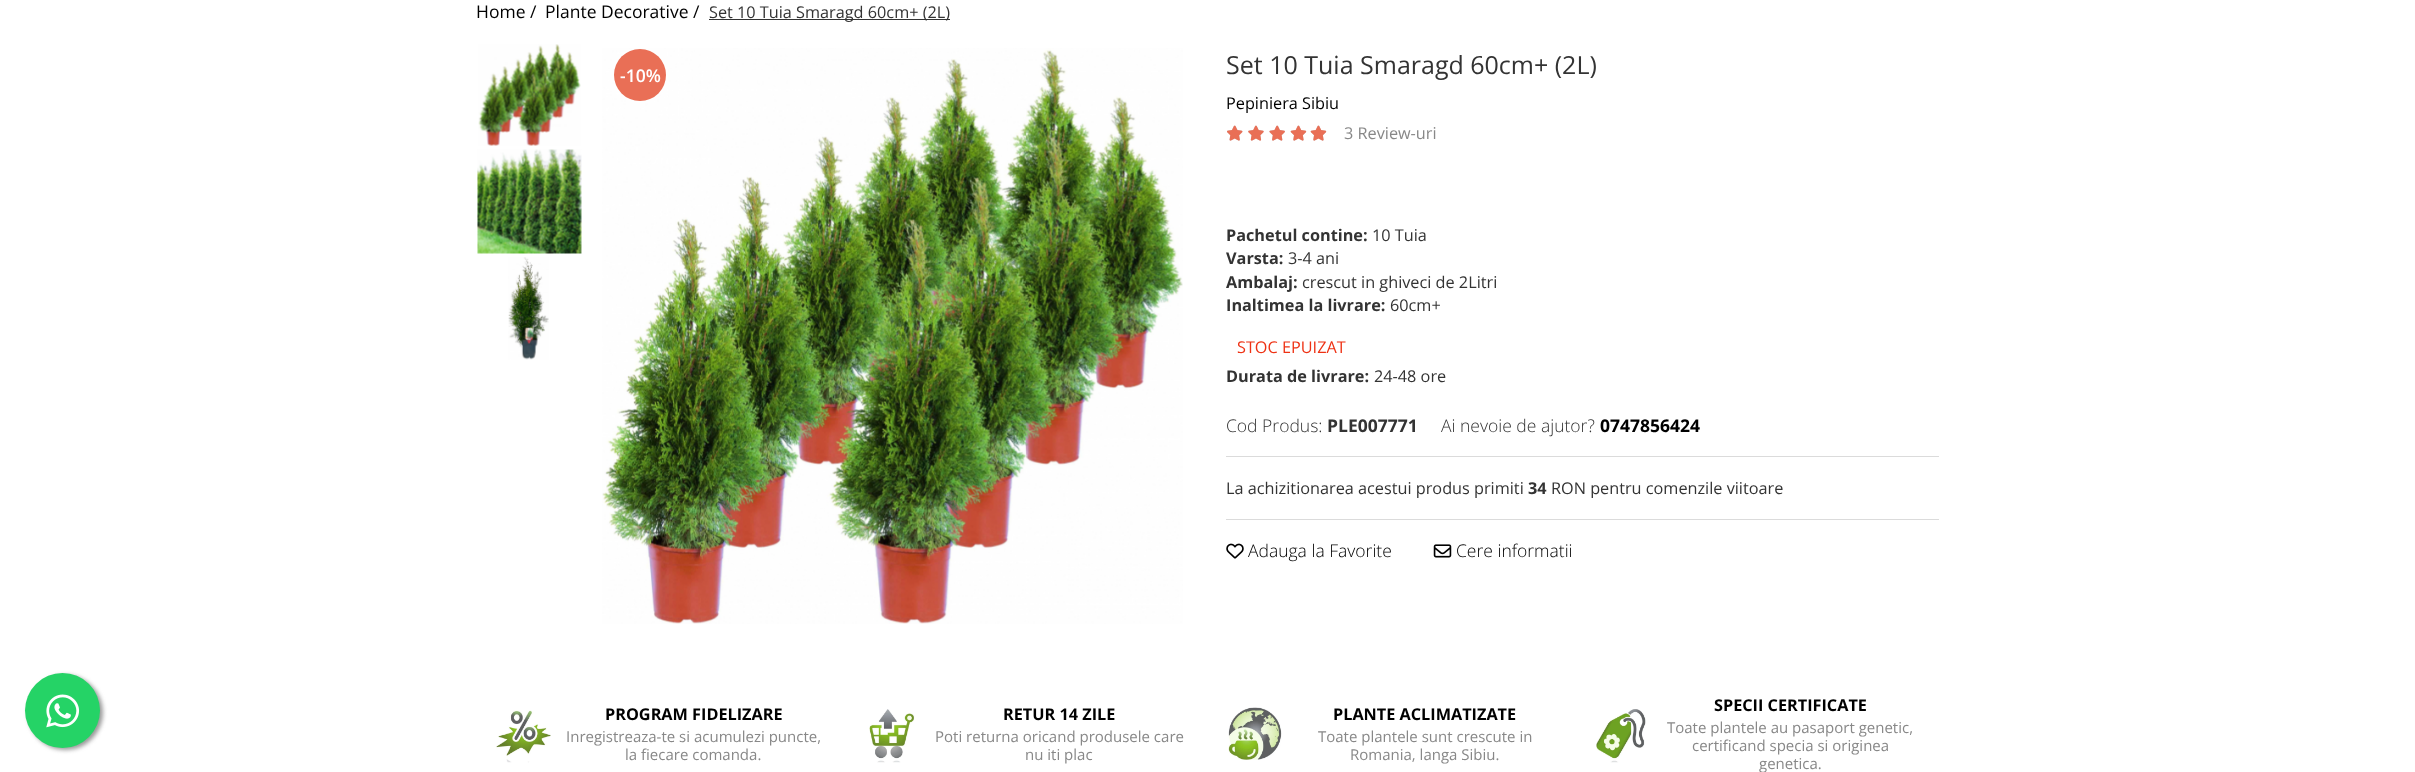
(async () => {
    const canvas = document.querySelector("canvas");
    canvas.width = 2415;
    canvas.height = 772;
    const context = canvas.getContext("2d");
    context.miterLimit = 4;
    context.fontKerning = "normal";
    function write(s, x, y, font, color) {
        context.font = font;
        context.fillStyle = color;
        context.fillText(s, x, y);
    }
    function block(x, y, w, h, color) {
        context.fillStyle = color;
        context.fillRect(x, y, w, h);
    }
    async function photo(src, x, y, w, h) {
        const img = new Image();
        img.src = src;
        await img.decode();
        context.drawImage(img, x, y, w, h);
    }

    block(0, 0, 2415, 772, "rgb(255, 255, 255)");
    context.fillStyle = "rgb(153, 153, 153)";
    context.filter = "blur(2px)";
    context.beginPath();
    context.roundRect(28, 675, 75, 75, 37.5);
    context.fill();
    context.filter = "none";
    context.fillStyle = "rgb(37, 211, 102)";
    context.beginPath();
    context.arc(62.5, 710.5, 37.5, 0, Math.PI * 2);
    context.fill();
    await photo("media/1.png", 46, 694, 34, 34);
    write("Home /", 476, 18, "17.5px Open Sans", "rgb(0, 0, 0)");
    write("Plante Decorative /", 545, 18, "17.5px Open Sans", "rgb(0, 0, 0)");
    block(709, 19, 241, 1, "rgb(51, 51, 51)");
    write("Set 10 Tuia Smaragd 60cm+ (2L)", 709, 18, "16.25px Open Sans", "rgb(51, 51, 51)");
    await photo("media/2.png", 478, 44, 103, 102);
    await photo("media/3.png", 477, 149, 105, 105);
    await photo("media/4.png", 508, 257, 41, 103);
    await photo("media/5.png", 602, 48, 581, 576);
    context.fillStyle = "rgb(233, 111, 86)";
    context.beginPath();
    context.arc(640, 75, 26, 0, Math.PI * 2);
    context.fill();
    write("-10%", 620, 82, "600 17.5px Open Sans", "rgb(255, 255, 255)");
    write("Set 10 Tuia Smaragd 60cm+ (2L)", 1226, 74, "25px Open Sans", "rgb(51, 51, 51)");
    write("Pepiniera Sibiu", 1226, 109, "16.25px Open Sans", "rgb(0, 0, 0)");
    await photo("media/6.png", 1227, 125, 16, 16);
    await photo("media/7.png", 1227, 125, 16, 16);
    await photo("media/11.png", 1248, 125, 16, 16);
    await photo("media/8.png", 1248, 125, 16, 16);
    await photo("media/12.png", 1269, 125, 16, 16);
    await photo("media/9.png", 1269, 125, 16, 16);
    await photo("media/13.png", 1290, 125, 17, 16);
    await photo("media/10.png", 1290, 125, 17, 16);
    await photo("media/13.png", 1310, 125, 17, 16);
    await photo("media/10.png", 1310, 125, 17, 16);
    write("3 Review-uri", 1344, 139, "16.25px Open Sans", "rgb(136, 136, 136)");
    write("Pachetul contine:", 1226, 241, "bold 16.25px Open Sans", "rgb(51, 51, 51)");
    write("10 Tuia", 1372, 241, "16.25px Open Sans", "rgb(51, 51, 51)");
    write("Varsta:", 1226, 264, "bold 16.25px Open Sans", "rgb(51, 51, 51)");
    write("3-4 ani", 1288, 264, "16.25px Open Sans", "rgb(51, 51, 51)");
    write("Ambalaj:", 1226, 288, "bold 16.25px Open Sans", "rgb(51, 51, 51)");
    write("crescut in ghiveci de 2Litri", 1302, 288, "16.25px Open Sans", "rgb(51, 51, 51)");
    write("Inaltimea la livrare:", 1226, 311, "bold 16.25px Open Sans", "rgb(51, 51, 51)");
    write("60cm+", 1390, 311, "16.25px Open Sans", "rgb(51, 51, 51)");
    write("STOC EPUIZAT", 1237, 353, "16.25px Open Sans", "rgb(238, 50, 20)");
    write("Durata de livrare:", 1226, 382, "bold 16.25px Open Sans", "rgb(51, 51, 51)");
    write("24-48 ore", 1374, 382, "16.25px Open Sans", "rgb(51, 51, 51)");
    write("Cod Produs:", 1226, 432, "300 17.5px Open Sans", "rgb(51, 51, 51)");
    write("PLE007771", 1327, 432, "bold 17.5px Open Sans", "rgb(51, 51, 51)");
    write("Ai nevoie de ajutor?", 1441, 432, "300 17.5px Open Sans", "rgb(51, 51, 51)");
    write("0747856424", 1600, 432, "bold 17.5px Open Sans", "rgb(0, 0, 0)");
    block(1226, 456, 713, 1, "rgb(219, 219, 219)");
    write("La achizitionarea acestui produs primiti", 1226, 494, "16.25px Open Sans", "rgb(51, 51, 51)");
    write("34", 1528, 494, "bold 16.25px Open Sans", "rgb(51, 51, 51)");
    write("RON pentru comenzile viitoare", 1551, 494, "16.25px Open Sans", "rgb(51, 51, 51)");
    block(1226, 519, 713, 1, "rgb(219, 219, 219)");
    await photo("media/14.png", 1226, 543, 18, 16);
    write("Adauga la Favorite", 1248, 557, "300 17.5px Open Sans", "rgb(0, 0, 0)");
    await photo("media/15.png", 1433, 544, 19, 14);
    write("Cere informatii", 1456, 557, "300 17.5px Open Sans", "rgb(0, 0, 0)");
    await photo("media/16.png", 496, 710, 55, 53);
    write("PROGRAM FIDELIZARE", 605, 720, "bold 16.25px Open Sans", "rgb(0, 0, 0)");
    write("Inregistreaza-te si acumulezi puncte,", 566, 742, "15px Open Sans", "rgb(136, 136, 136)");
    write("la fiecare comanda.", 625, 760, "15px Open Sans", "rgb(136, 136, 136)");
    await photo("media/17.png", 869, 709, 46, 54);
    write("RETUR 14 ZILE", 1003, 720, "bold 16.25px Open Sans", "rgb(0, 0, 0)");
    write("Poti returna oricand produsele care", 935, 742, "15px Open Sans", "rgb(136, 136, 136)");
    write("nu iti plac", 1025, 760, "15px Open Sans", "rgb(136, 136, 136)");
    await photo("media/18.png", 1228, 707, 54, 53);
    write("PLANTE ACLIMATIZATE", 1333, 720, "bold 16.25px Open Sans", "rgb(0, 0, 0)");
    write("Toate plantele sunt crescute in", 1318, 742, "15px Open Sans", "rgb(136, 136, 136)");
    write("Romania, langa Sibiu.", 1350, 760, "15px Open Sans", "rgb(136, 136, 136)");
    await photo("media/19.png", 1596, 709, 50, 54);
    write("SPECII CERTIFICATE", 1714, 711, "bold 16.25px Open Sans", "rgb(0, 0, 0)");
    write("Toate plantele au pasaport genetic,", 1667, 733, "15px Open Sans", "rgb(136, 136, 136)");
    write("certificand specia si originea", 1692, 751, "15px Open Sans", "rgb(136, 136, 136)");
    write("genetica.", 1759, 769, "15px Open Sans", "rgb(136, 136, 136)");
})();
